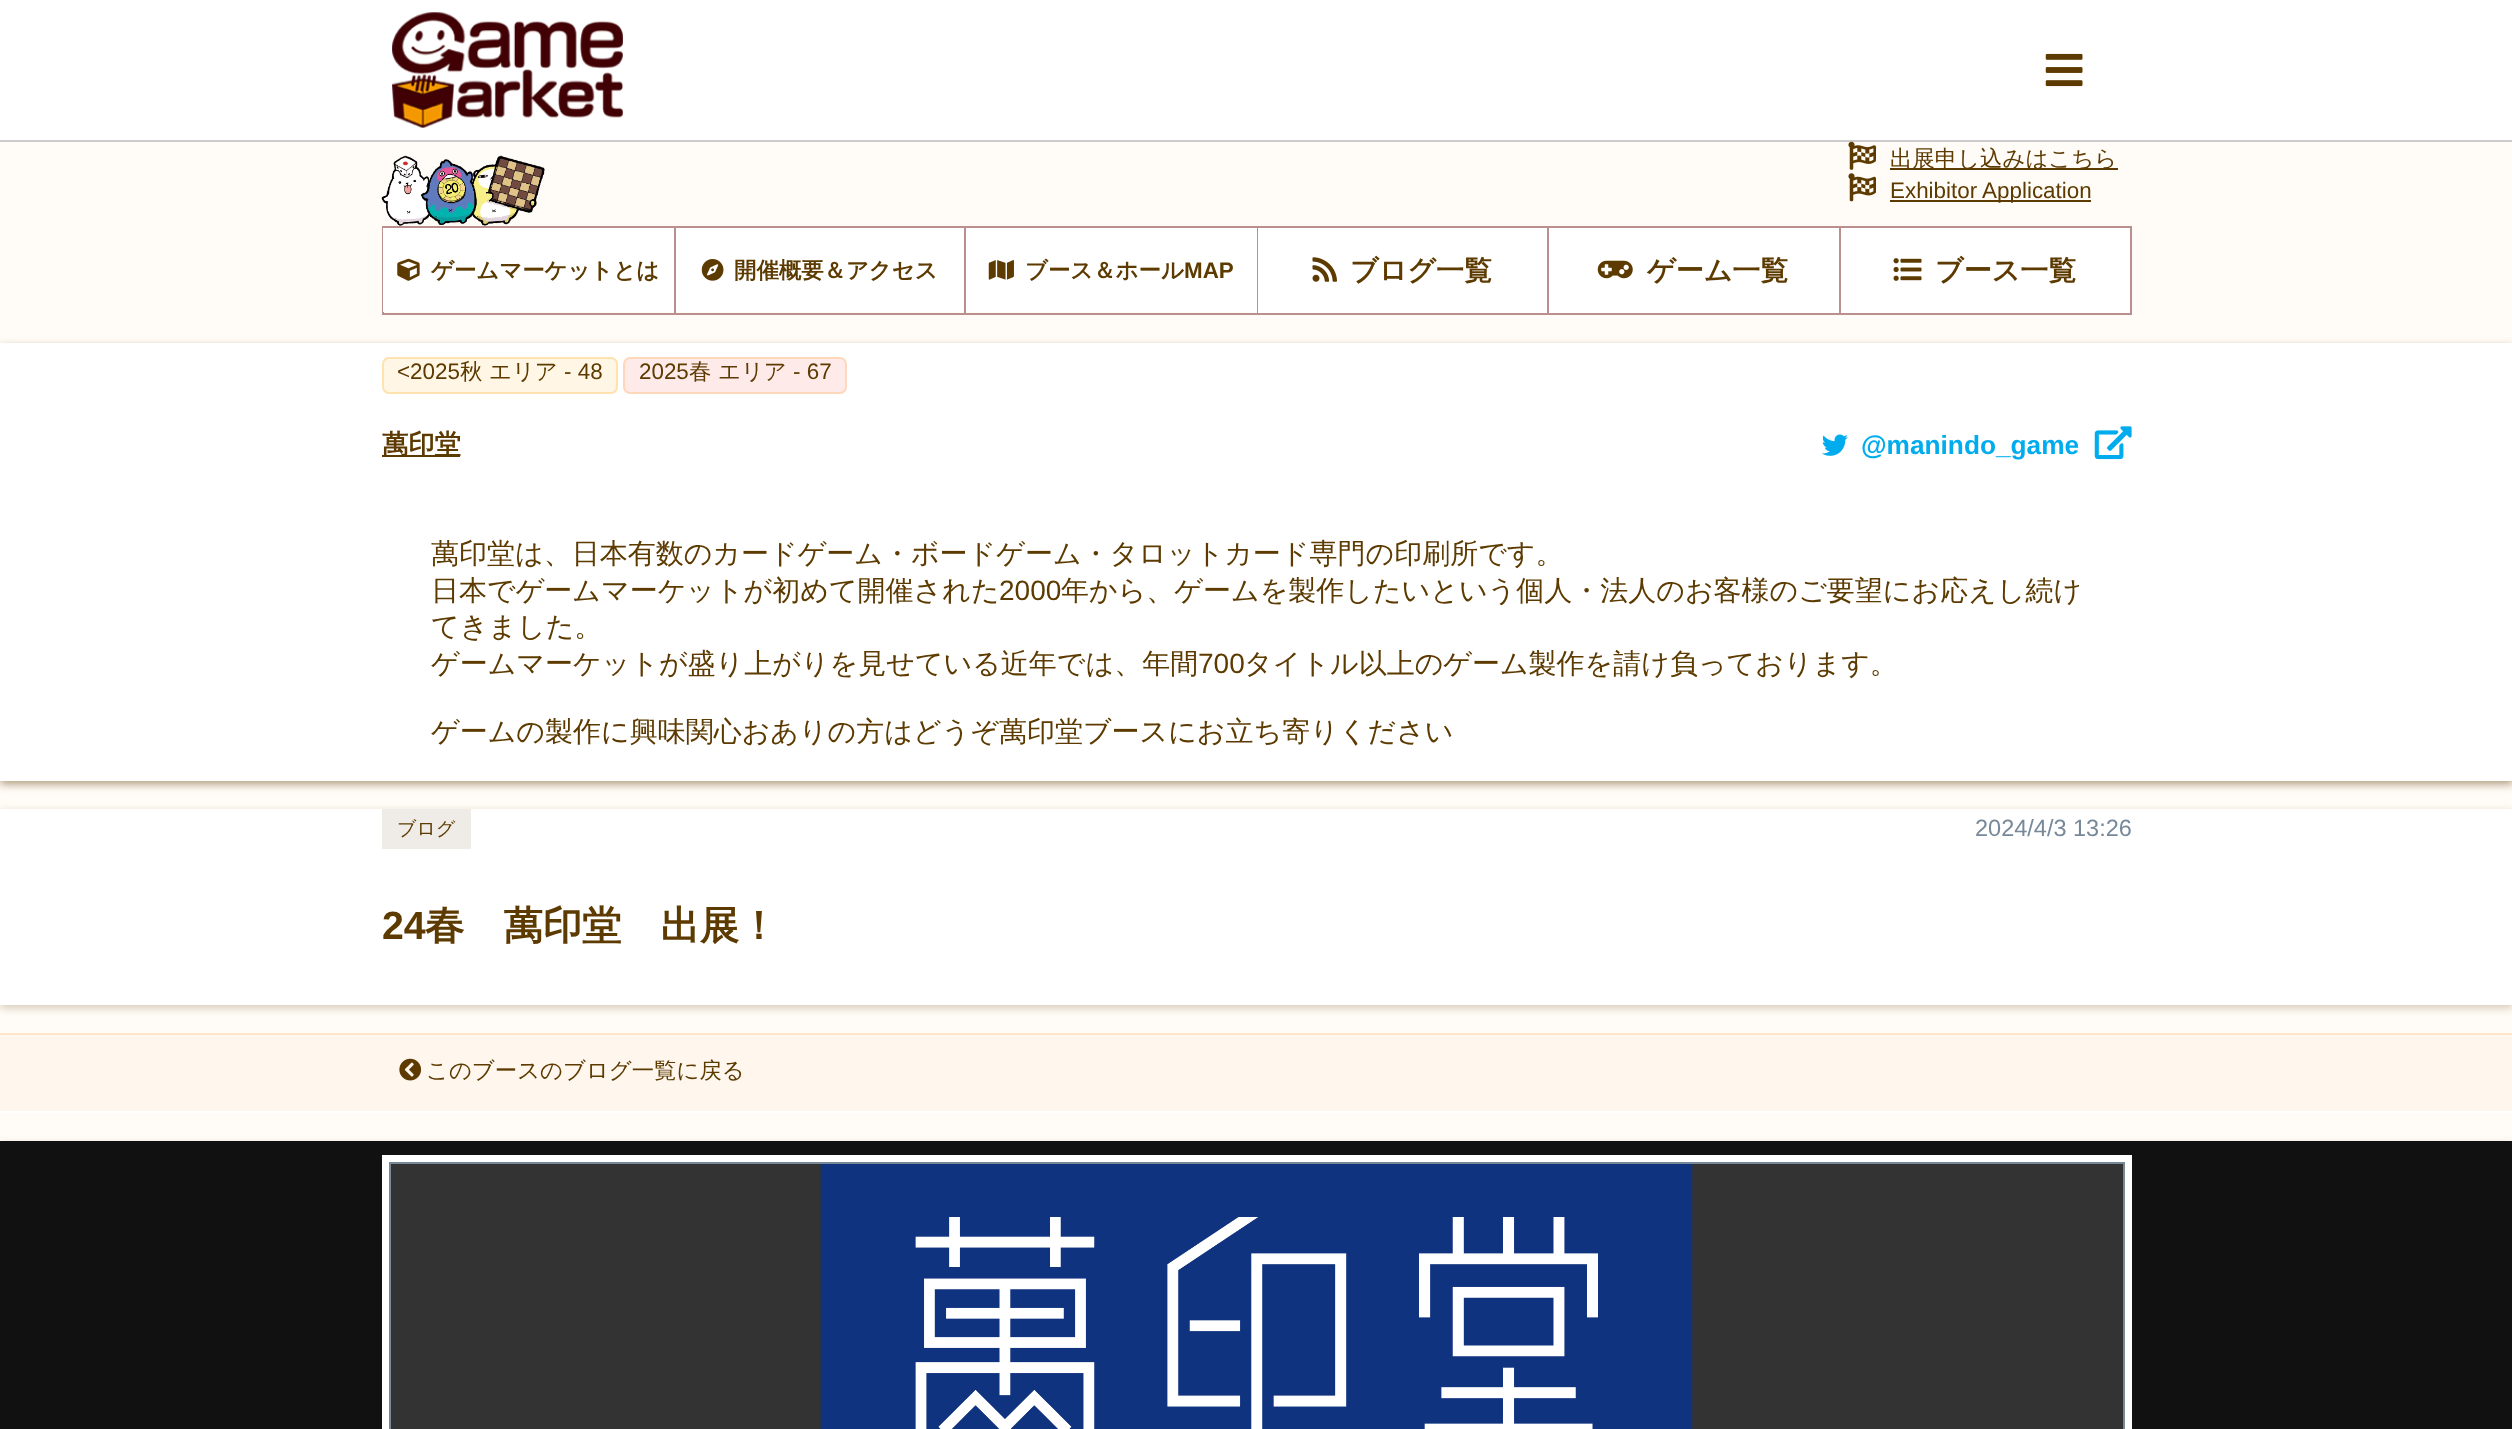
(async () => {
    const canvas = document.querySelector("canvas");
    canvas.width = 2512;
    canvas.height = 1429;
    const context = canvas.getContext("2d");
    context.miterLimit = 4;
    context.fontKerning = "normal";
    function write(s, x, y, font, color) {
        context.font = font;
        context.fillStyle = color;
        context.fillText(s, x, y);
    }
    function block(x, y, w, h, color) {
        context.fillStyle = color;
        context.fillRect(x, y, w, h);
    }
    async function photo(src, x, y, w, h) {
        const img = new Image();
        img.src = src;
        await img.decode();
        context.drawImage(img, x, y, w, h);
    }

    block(0, 0, 2512, 1429, "rgb(255, 251, 246)");
    block(0, 0, 2512, 140, "rgb(255, 255, 255)");
    block(0, 140, 2512, 2, "rgb(204, 204, 204)");
    await photo("media/1.png", 392, 12, 231, 116);
    await photo("media/2.png", 2045, 53, 38, 34);
    await photo("media/3.png", 1848, 141, 28, 29);
    block(1890, 168, 228, 2, "rgb(92, 58, 0)");
    write("出展申し込みはこちら", 1890, 166, "500 22.4px WenQuanYi Zen Hei", "rgb(92, 58, 0)");
    await photo("media/4.png", 1848, 173, 28, 29);
    block(1890, 200, 201, 2, "rgb(92, 58, 0)");
    write("Exhibitor Application", 1890, 198, "22.4px Liberation Sans", "rgb(92, 58, 0)");
    await photo("media/5.png", 381, 155, 164, 71);
    block(382, 226, 2, 89, "rgb(188, 143, 143)");
    block(383, 226, 1749, 2, "rgb(188, 143, 143)");
    block(674, 226, 2, 89, "rgb(188, 143, 143)");
    block(383, 313, 293, 2, "rgb(188, 143, 143)");
    block(383, 228, 291, 84, "rgb(255, 255, 255)");
    await photo("media/6.png", 397, 258, 23, 23);
    write("ゲームマーケットとは", 431, 278, "bold 22.4px WenQuanYi Zen Hei", "rgb(92, 58, 0)");
    block(964, 226, 2, 89, "rgb(188, 143, 143)");
    block(676, 313, 290, 2, "rgb(188, 143, 143)");
    block(676, 228, 288, 84, "rgb(255, 255, 255)");
    await photo("media/7.png", 701, 259, 23, 22);
    write("開催概要＆アクセス", 734, 278, "bold 22.4px WenQuanYi Zen Hei", "rgb(92, 58, 0)");
    block(1257, 226, 1, 89, "rgb(188, 143, 143)");
    block(966, 313, 292, 2, "rgb(188, 143, 143)");
    block(966, 228, 291, 84, "rgb(255, 255, 255)");
    await photo("media/8.png", 988, 260, 26, 20);
    write("ブース＆ホール", 1025, 278, "bold 22.4px WenQuanYi Zen Hei", "rgb(92, 58, 0)");
    write("MAP", 1184, 278, "bold 22.4px Liberation Sans", "rgb(92, 58, 0)");
    block(1547, 226, 2, 89, "rgb(188, 143, 143)");
    block(1258, 313, 291, 2, "rgb(188, 143, 143)");
    block(1258, 228, 289, 85, "rgb(255, 255, 255)");
    await photo("media/9.png", 1312, 257, 25, 25);
    write("ブログ一覧", 1350, 280, "bold 28px WenQuanYi Zen Hei", "rgb(92, 58, 0)");
    block(1839, 226, 2, 89, "rgb(188, 143, 143)");
    block(1549, 313, 292, 2, "rgb(188, 143, 143)");
    block(1549, 228, 290, 85, "rgb(255, 255, 255)");
    await photo("media/10.png", 1597, 260, 36, 19);
    write("ゲーム一覧", 1647, 280, "bold 28px WenQuanYi Zen Hei", "rgb(92, 58, 0)");
    block(2130, 226, 2, 89, "rgb(188, 143, 143)");
    block(1841, 313, 291, 2, "rgb(188, 143, 143)");
    block(1841, 228, 289, 85, "rgb(255, 255, 255)");
    await photo("media/11.png", 1893, 258, 29, 23);
    write("ブース一覧", 1935, 280, "bold 28px WenQuanYi Zen Hei", "rgb(92, 58, 0)");
    context.fillStyle = "rgba(92, 58, 0, 0.5)";
    context.filter = "blur(4.5px)";
    context.beginPath();
    context.rect(0, 347, 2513, 437);
    context.fill();
    context.filter = "none";
    block(0, 343, 2512, 438, "rgb(255, 255, 255)");
    context.fillStyle = "rgb(255, 246, 229)";
    context.beginPath();
    context.roundRect(383, 358, 234, 35, 6);
    context.fill();
    context.strokeStyle = "rgb(255, 226, 174)";
    context.lineWidth = 2;
    context.stroke();
    write("<2025", 397, 379, "22.4px Liberation Sans", "rgb(92, 58, 0)");
    write("秋", 460, 379, "500 22.4px WenQuanYi Zen Hei", "rgb(92, 58, 0)");
    write("エリア", 489, 379, "500 22.4px WenQuanYi Zen Hei", "rgb(92, 58, 0)");
    write("- 48", 564, 379, "22.4px Liberation Sans", "rgb(92, 58, 0)");
    context.fillStyle = "rgb(255, 234, 234)";
    context.beginPath();
    context.roundRect(624, 358, 222, 35, 6);
    context.fill();
    context.strokeStyle = "rgb(255, 215, 186)";
    context.stroke();
    write("2025", 639, 379, "22.4px Liberation Sans", "rgb(92, 58, 0)");
    write("春", 689, 379, "500 22.4px WenQuanYi Zen Hei", "rgb(92, 58, 0)");
    write("エリア", 718, 379, "500 22.4px WenQuanYi Zen Hei", "rgb(92, 58, 0)");
    write("- 67", 793, 379, "22.4px Liberation Sans", "rgb(92, 58, 0)");
    block(382, 455, 78, 2, "rgb(92, 58, 0)");
    write("萬印堂", 382, 453, "bold 26.25px WenQuanYi Zen Hei", "rgb(92, 58, 0)");
    await photo("media/12.png", 1822, 434, 26, 22);
    write("@manindo_game", 1861, 454, "bold 26.25px Liberation Sans", "rgb(0, 172, 238)");
    await photo("media/13.png", 2094, 426, 38, 34);
    write("萬印堂は、日本有数のカードゲーム・ボードゲーム・タロットカード専門の印刷所です。", 431, 563, "500 28px WenQuanYi Zen Hei", "rgb(92, 58, 0)");
    write("日本でゲームマーケットが初めて開催された", 431, 600, "500 28px WenQuanYi Zen Hei", "rgb(92, 58, 0)");
    write("2000", 999, 600, "28px Liberation Sans", "rgb(92, 58, 0)");
    write("年から、ゲームを製作したいという個人・法人のお客様のご要望にお応えし続け", 1061, 600, "500 28px WenQuanYi Zen Hei", "rgb(92, 58, 0)");
    write("てきました。", 431, 636, "500 28px WenQuanYi Zen Hei", "rgb(92, 58, 0)");
    write("ゲームマーケットが盛り上がりを見せている近年では、年間", 431, 673, "500 28px WenQuanYi Zen Hei", "rgb(92, 58, 0)");
    write("700", 1198, 673, "28px Liberation Sans", "rgb(92, 58, 0)");
    write("タイトル以上のゲーム製作を請け負っております。", 1244, 673, "500 28px WenQuanYi Zen Hei", "rgb(92, 58, 0)");
    write("ゲームの製作に興味関心おありの方はどうぞ萬印堂ブースにお立ち寄りください", 431, 741, "500 28px WenQuanYi Zen Hei", "rgb(92, 58, 0)");
    context.fillStyle = "rgba(92, 58, 0, 0.25)";
    context.filter = "blur(4.5px)";
    context.beginPath();
    context.rect(0, 812, 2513, 196);
    context.fill();
    context.filter = "none";
    block(0, 809, 2512, 196, "rgb(255, 255, 255)");
    block(382, 809, 89, 40, "rgb(239, 235, 230)");
    write("ブログ", 397, 835, "500 19px WenQuanYi Zen Hei", "rgb(92, 58, 0)");
    write("2024/4/3 13:26", 1975, 836, "23.5px Liberation Sans", "rgb(119, 136, 153)");
    write("24", 382, 939, "bold 39.25px Liberation Sans", "rgb(92, 58, 0)");
    write("春　萬印堂　出展！", 425, 939, "bold 39.25px WenQuanYi Zen Hei", "rgb(92, 58, 0)");
    block(0, 1035, 2512, 76, "rgb(255, 247, 238)");
    block(0, 1033, 2512, 2, "rgb(255, 230, 200)");
    block(0, 1111, 2512, 2, "rgb(255, 255, 255)");
    await photo("media/14.png", 399, 1058, 23, 23);
    write("このブースのブログ一覧に戻る", 426, 1078, "500 22.4px WenQuanYi Zen Hei", "rgb(92, 58, 0)");
    context.fillStyle = "rgba(92, 58, 0, 0.25)";
    context.filter = "blur(4.5px)";
    context.beginPath();
    context.rect(0, 1145, 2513, 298);
    context.fill();
    context.filter = "none";
    block(0, 1141, 2512, 288, "rgb(17, 17, 17)");
    block(382, 1155, 1750, 274, "rgb(255, 255, 255)");
    block(391, 1164, 1732, 265, "rgb(51, 51, 51)");
    await photo("media/15.png", 820, 1164, 873, 265);
    context.strokeStyle = "rgb(119, 136, 153)";
    context.strokeRect(390, 1163, 1734, 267);
})();
